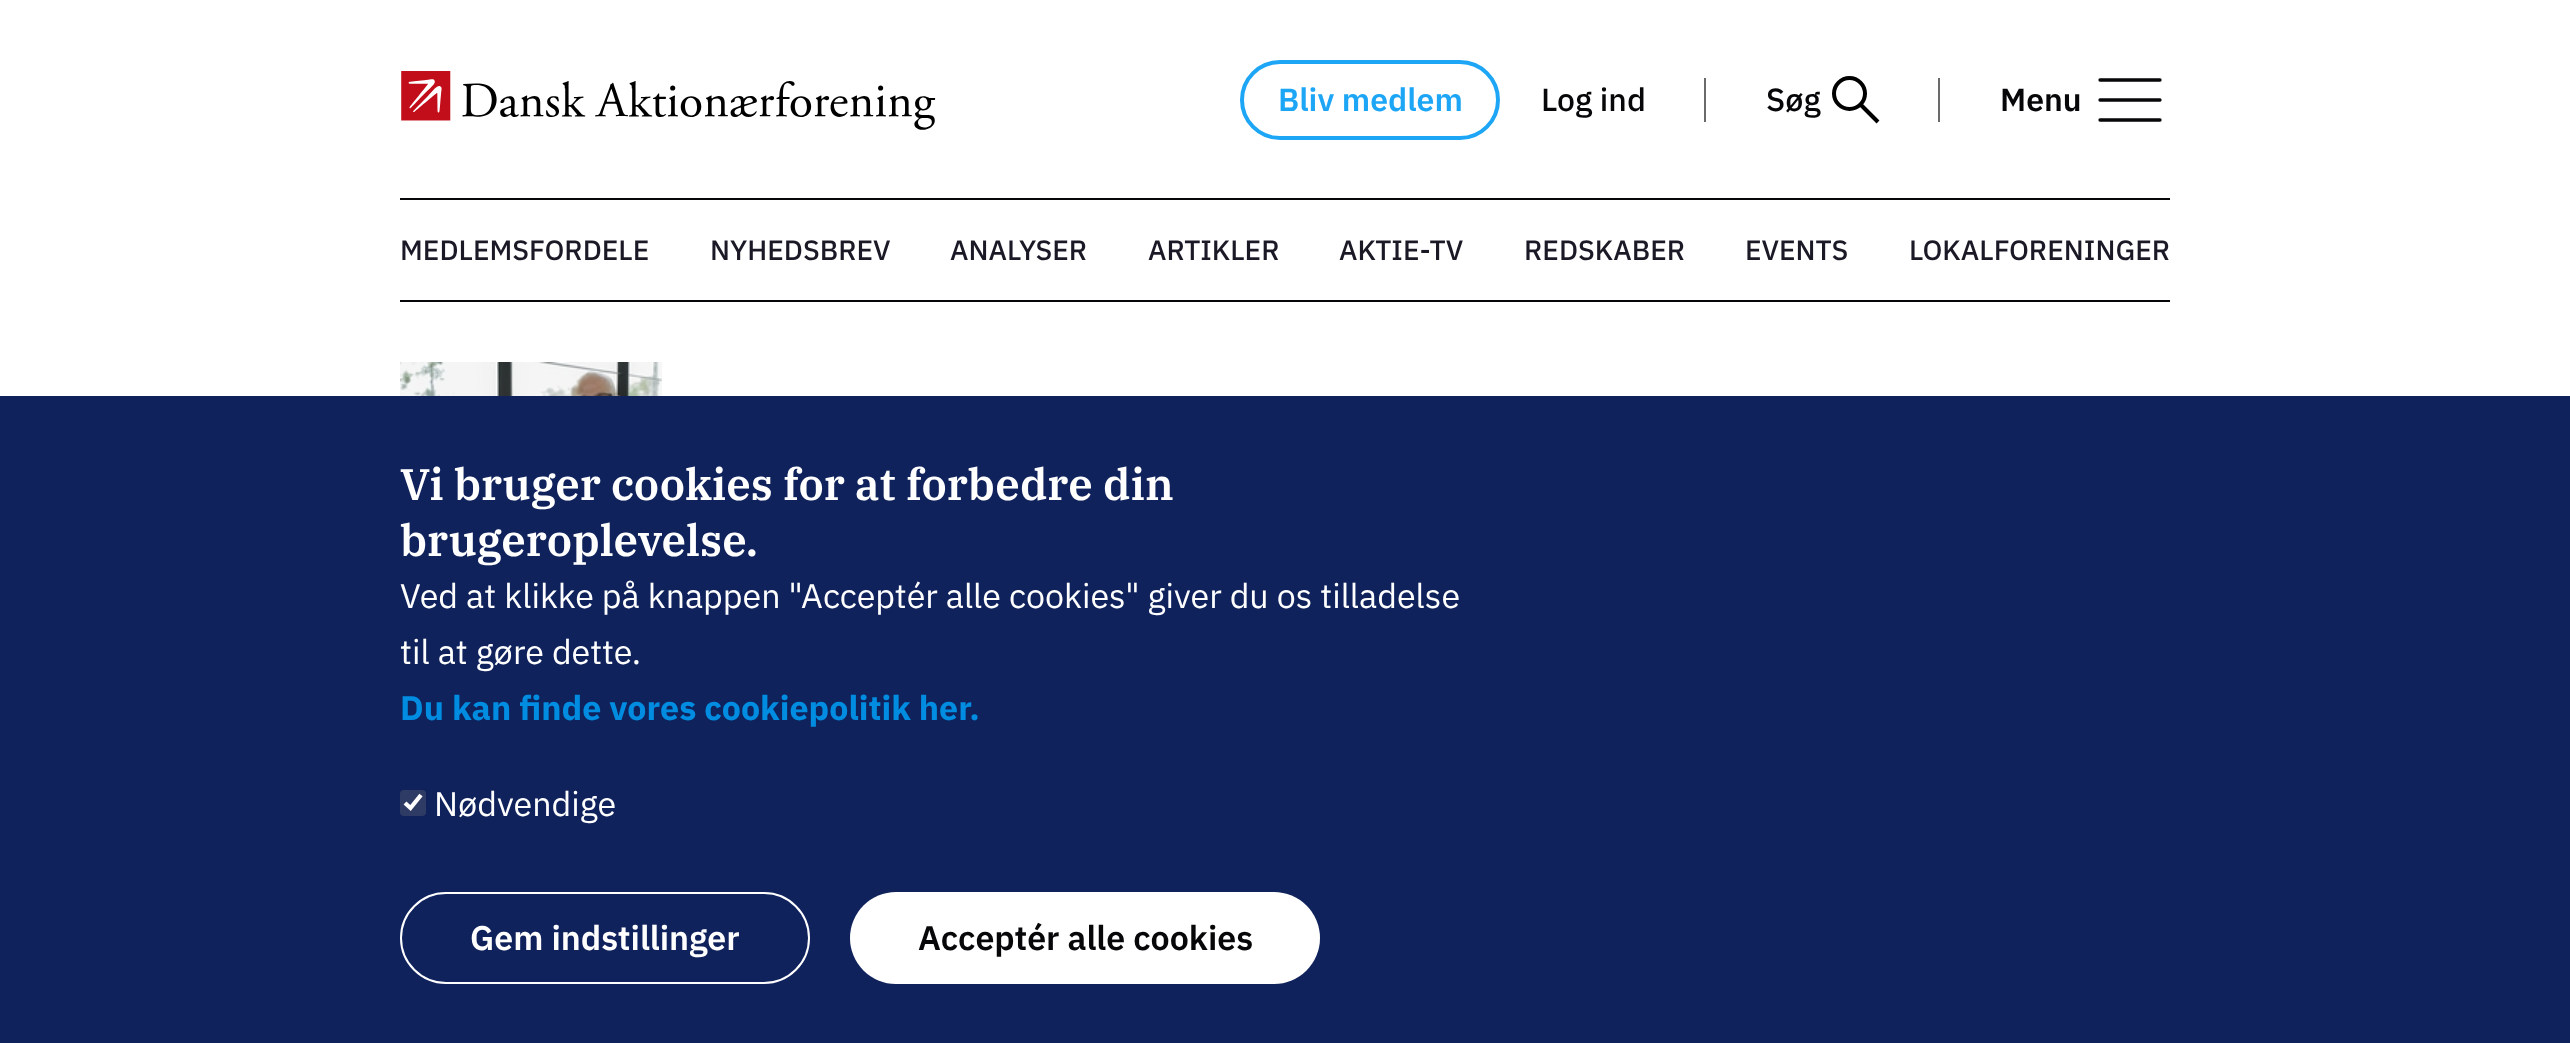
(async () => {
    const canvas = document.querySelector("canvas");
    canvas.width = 2570;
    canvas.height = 1043;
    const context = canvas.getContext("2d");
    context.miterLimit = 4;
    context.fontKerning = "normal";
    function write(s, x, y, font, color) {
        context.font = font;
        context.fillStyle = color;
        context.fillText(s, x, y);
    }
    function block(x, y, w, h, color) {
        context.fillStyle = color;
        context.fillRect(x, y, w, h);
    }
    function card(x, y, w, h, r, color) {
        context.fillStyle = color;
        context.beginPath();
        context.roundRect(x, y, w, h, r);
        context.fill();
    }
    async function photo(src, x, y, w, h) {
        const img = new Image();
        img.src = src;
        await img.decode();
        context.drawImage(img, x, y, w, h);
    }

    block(0, 0, 2570, 1043, "rgb(255, 255, 255)");
    block(400, 198, 1770, 2, "rgb(7, 6, 8)");
    await photo("media/1.png", 401, 71, 535, 59);
    context.beginPath();
    context.roundRect(1242, 62, 256, 76, 38);
    context.strokeStyle = "rgb(30, 166, 246)";
    context.lineWidth = 4;
    context.stroke();
    write("Bliv medlem", 1278, 111, "600 32px IBM Plex Sans", "rgb(30, 166, 246)");
    write("Log ind", 1541, 111, "500 32px IBM Plex Sans", "rgb(7, 6, 8)");
    block(1704, 78, 2, 44, "rgb(106, 106, 107)");
    write("Søg", 1766, 111, "500 32px IBM Plex Sans", "rgb(7, 6, 8)");
    context.beginPath();
    context.arc(1849.5, 93.5, 15.5, 0, Math.PI * 2);
    context.strokeStyle = "rgb(0, 0, 0)";
    context.stroke();
    context.beginPath();
    context.moveTo(1860, 104);
    context.lineTo(1878, 122);
    context.stroke();
    block(1938, 78, 2, 44, "rgb(106, 106, 107)");
    write("Menu", 2000, 111, "600 32px IBM Plex Sans", "rgb(7, 6, 8)");
    context.beginPath();
    context.moveTo(2100, 100);
    context.lineTo(2160, 100);
    context.strokeStyle = "rgb(7, 6, 8)";
    context.lineWidth = 3.3;
    context.lineCap = "round";
    context.lineJoin = "round";
    context.stroke();
    context.beginPath();
    context.moveTo(2100, 80);
    context.lineTo(2160, 80);
    context.stroke();
    context.beginPath();
    context.moveTo(2100, 120);
    context.lineTo(2160, 120);
    context.stroke();
    block(400, 300, 1770, 2, "rgb(7, 6, 8)");
    write("MEDLEMSFORDELE", 400, 260, "500 28px IBM Plex Sans", "rgb(28, 25, 39)");
    write("NYHEDSBREV", 710, 260, "500 28px IBM Plex Sans", "rgb(28, 25, 39)");
    write("ANALYSER", 950, 260, "500 28px IBM Plex Sans", "rgb(28, 25, 39)");
    write("ARTIKLER", 1148, 260, "500 28px IBM Plex Sans", "rgb(28, 25, 39)");
    write("AKTIE-TV", 1339, 260, "500 28px IBM Plex Sans", "rgb(28, 25, 39)");
    write("REDSKABER", 1524, 260, "500 28px IBM Plex Sans", "rgb(28, 25, 39)");
    write("EVENTS", 1745, 260, "500 28px IBM Plex Sans", "rgb(28, 25, 39)");
    write("LOKALFORENINGER", 1909, 260, "500 28px IBM Plex Sans", "rgb(28, 25, 39)");
    await photo("media/2.png", 400, 362, 262, 34);
    block(0, 396, 2570, 647, "rgb(15, 34, 92)");
    write("Vi bruger cookies for at forbedre din", 400, 500, "600 44px IBM Plex Serif", "rgb(255, 255, 255)");
    write("brugeroplevelse.", 400, 556, "600 44px IBM Plex Serif", "rgb(255, 255, 255)");
    write("Ved at klikke på knappen \"Acceptér alle cookies\" giver du os tilladelse", 400, 608, "34px IBM Plex Sans", "rgb(255, 255, 255)");
    write("til at gøre dette.", 400, 664, "34px IBM Plex Sans", "rgb(255, 255, 255)");
    write("Du kan finde vores cookiepolitik her.", 400, 720, "bold 34px IBM Plex Sans", "rgb(0, 140, 224)");
    card(400, 790, 26, 26, 4, "rgb(46, 59, 100)");
    context.beginPath();
    context.moveTo(405, 803);
    context.lineTo(410.5, 808);
    context.lineTo(421, 795);
    context.strokeStyle = "rgb(255, 255, 255)";
    context.lineWidth = 4.2;
    context.lineCap = "butt";
    context.lineJoin = "miter";
    context.stroke();
    write("Nødvendige", 434, 816, "34px IBM Plex Sans", "rgb(255, 255, 255)");
    context.beginPath();
    context.roundRect(401, 893, 408, 90, 45);
    context.lineWidth = 2;
    context.stroke();
    write("Gem indstillinger", 470, 950, "600 34px IBM Plex Sans", "rgb(255, 255, 255)");
    card(850, 892, 470, 92, 46, "rgb(255, 255, 255)");
    write("Acceptér alle cookies", 918, 950, "600 34px IBM Plex Sans", "rgb(7, 6, 8)");
})();
